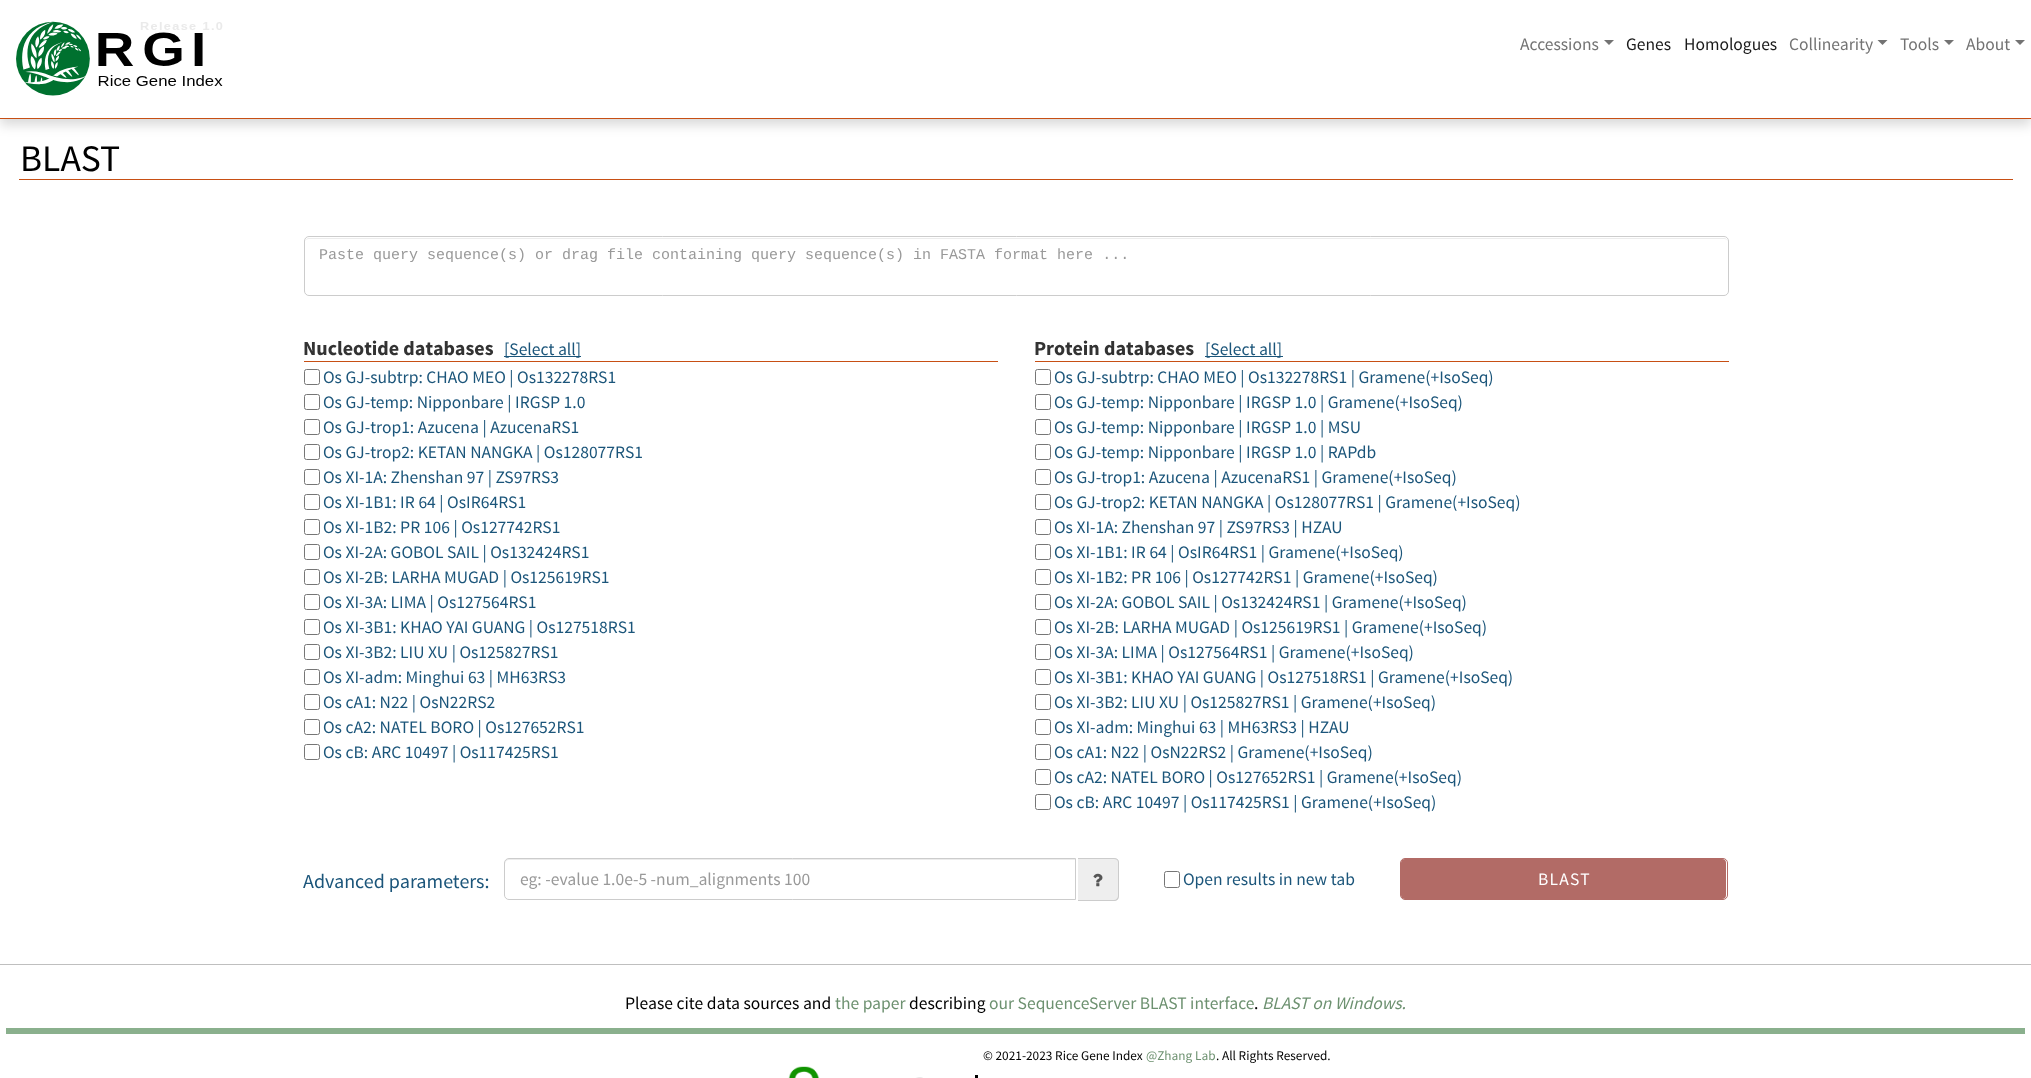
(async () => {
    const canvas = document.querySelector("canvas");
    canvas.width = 2031;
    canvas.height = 1078;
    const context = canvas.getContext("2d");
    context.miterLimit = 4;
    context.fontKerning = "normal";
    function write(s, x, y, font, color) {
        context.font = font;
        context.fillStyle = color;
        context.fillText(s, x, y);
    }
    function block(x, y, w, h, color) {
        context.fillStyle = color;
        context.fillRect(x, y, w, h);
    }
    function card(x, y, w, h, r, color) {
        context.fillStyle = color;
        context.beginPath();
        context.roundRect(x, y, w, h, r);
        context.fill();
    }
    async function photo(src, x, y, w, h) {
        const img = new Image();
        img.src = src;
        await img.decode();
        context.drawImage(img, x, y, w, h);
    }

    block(0, 0, 2031, 1078, "rgb(255, 255, 255)");
    context.fillStyle = "rgba(0, 0, 0, 0.15)";
    context.filter = "blur(6px)";
    context.beginPath();
    context.rect(0, 6, 2031, 119);
    context.fill();
    context.filter = "none";
    block(0, 0, 2031, 118, "rgb(255, 255, 255)");
    block(0, 118, 2031, 1, "rgb(199, 79, 20)");
    await photo("media/1.png", 16, 21, 207, 75);
    write("Accessions", 1520, 50, "17.5px Source Sans Pro", "rgb(115, 115, 115)");
    context.beginPath();
    context.moveTo(1604, 40);
    context.lineTo(1614, 40);
    context.lineTo(1609, 45);
    context.closePath();
    context.fill();
    write("Genes", 1626, 50, "17.5px Source Sans Pro", "rgb(26, 26, 26)");
    write("Homologues", 1684, 50, "17.5px Source Sans Pro", "rgb(26, 26, 26)");
    write("Collinearity", 1789, 50, "17.5px Source Sans Pro", "rgb(115, 115, 115)");
    context.beginPath();
    context.moveTo(1877.5, 40);
    context.lineTo(1887.5, 40);
    context.lineTo(1882.5, 45);
    context.closePath();
    context.fill();
    write("Tools", 1900, 50, "17.5px Source Sans Pro", "rgb(115, 115, 115)");
    context.beginPath();
    context.moveTo(1944, 40);
    context.lineTo(1954, 40);
    context.lineTo(1949, 45);
    context.closePath();
    context.fill();
    write("About", 1966, 50, "17.5px Source Sans Pro", "rgb(115, 115, 115)");
    context.beginPath();
    context.moveTo(2015, 40);
    context.lineTo(2025, 40);
    context.lineTo(2020, 45);
    context.closePath();
    context.fill();
    block(19, 179, 1994, 1, "rgb(199, 79, 20)");
    write("BLAST", 20, 171, "37.5px Source Sans Pro", "rgb(0, 0, 0)");
    context.fillStyle = "rgb(236, 236, 236)";
    context.beginPath();
    context.moveTo(309, 239);
    context.lineTo(1724, 239);
    context.bezierCurveTo(1726, 239, 1728, 240, 1728, 242);
    context.bezierCurveTo(1728, 240, 1726, 238, 1724, 238);
    context.lineTo(309, 238);
    context.bezierCurveTo(307, 238, 305, 240, 305, 242);
    context.bezierCurveTo(305, 240, 307, 239, 309, 239);
    context.closePath();
    context.fill();
    context.beginPath();
    context.roundRect(304.5, 236.5, 1424, 59, 4.5);
    context.strokeStyle = "rgb(204, 204, 204)";
    context.stroke();
    write("Paste query sequence(s) or drag file containing query sequence(s) in FASTA format here ...", 319, 259, "15px Liberation Mono", "rgb(153, 153, 153)");
    block(304, 361, 694, 1, "rgb(199, 79, 20)");
    write("Nucleotide databases", 303, 355, "bold 20px Source Sans Pro", "rgb(51, 51, 51)");
    block(504, 356, 77, 1, "rgb(27, 85, 122)");
    write("[Select all]", 504, 355, "17.5px Source Sans Pro", "rgb(27, 85, 122)");
    context.beginPath();
    context.roundRect(304.5, 369.5, 15, 15, 2);
    context.strokeStyle = "rgb(118, 118, 118)";
    context.stroke();
    write("Os GJ-subtrp: CHAO MEO | Os132278RS1", 323, 383, "17.5px Source Sans Pro", "rgb(27, 85, 122)");
    context.beginPath();
    context.roundRect(304.5, 394.5, 15, 15, 2);
    context.stroke();
    write("Os GJ-temp: Nipponbare | IRGSP 1.0", 323, 408, "17.5px Source Sans Pro", "rgb(27, 85, 122)");
    context.beginPath();
    context.roundRect(304.5, 419.5, 15, 15, 2);
    context.stroke();
    write("Os GJ-trop1: Azucena | AzucenaRS1", 323, 433, "17.5px Source Sans Pro", "rgb(27, 85, 122)");
    context.beginPath();
    context.roundRect(304.5, 444.5, 15, 15, 2);
    context.stroke();
    write("Os GJ-trop2: KETAN NANGKA | Os128077RS1", 323, 458, "17.5px Source Sans Pro", "rgb(27, 85, 122)");
    context.beginPath();
    context.roundRect(304.5, 469.5, 15, 15, 2);
    context.stroke();
    write("Os XI-1A: Zhenshan 97 | ZS97RS3", 323, 483, "17.5px Source Sans Pro", "rgb(27, 85, 122)");
    context.beginPath();
    context.roundRect(304.5, 494.5, 15, 15, 2);
    context.stroke();
    write("Os XI-1B1: IR 64 | OsIR64RS1", 323, 508, "17.5px Source Sans Pro", "rgb(27, 85, 122)");
    context.beginPath();
    context.roundRect(304.5, 519.5, 15, 15, 2);
    context.stroke();
    write("Os XI-1B2: PR 106 | Os127742RS1", 323, 533, "17.5px Source Sans Pro", "rgb(27, 85, 122)");
    context.beginPath();
    context.roundRect(304.5, 544.5, 15, 15, 2);
    context.stroke();
    write("Os XI-2A: GOBOL SAIL | Os132424RS1", 323, 558, "17.5px Source Sans Pro", "rgb(27, 85, 122)");
    context.beginPath();
    context.roundRect(304.5, 569.5, 15, 15, 2);
    context.stroke();
    write("Os XI-2B: LARHA MUGAD | Os125619RS1", 323, 583, "17.5px Source Sans Pro", "rgb(27, 85, 122)");
    context.beginPath();
    context.roundRect(304.5, 594.5, 15, 15, 2);
    context.stroke();
    write("Os XI-3A: LIMA | Os127564RS1", 323, 608, "17.5px Source Sans Pro", "rgb(27, 85, 122)");
    context.beginPath();
    context.roundRect(304.5, 619.5, 15, 15, 2);
    context.stroke();
    write("Os XI-3B1: KHAO YAI GUANG | Os127518RS1", 323, 633, "17.5px Source Sans Pro", "rgb(27, 85, 122)");
    context.beginPath();
    context.roundRect(304.5, 644.5, 15, 15, 2);
    context.stroke();
    write("Os XI-3B2: LIU XU | Os125827RS1", 323, 658, "17.5px Source Sans Pro", "rgb(27, 85, 122)");
    context.beginPath();
    context.roundRect(304.5, 669.5, 15, 15, 2);
    context.stroke();
    write("Os XI-adm: Minghui 63 | MH63RS3", 323, 683, "17.5px Source Sans Pro", "rgb(27, 85, 122)");
    context.beginPath();
    context.roundRect(304.5, 694.5, 15, 15, 2);
    context.stroke();
    write("Os cA1: N22 | OsN22RS2", 323, 708, "17.5px Source Sans Pro", "rgb(27, 85, 122)");
    context.beginPath();
    context.roundRect(304.5, 719.5, 15, 15, 2);
    context.stroke();
    write("Os cA2: NATEL BORO | Os127652RS1", 323, 733, "17.5px Source Sans Pro", "rgb(27, 85, 122)");
    context.beginPath();
    context.roundRect(304.5, 744.5, 15, 15, 2);
    context.stroke();
    write("Os cB: ARC 10497 | Os117425RS1", 323, 758, "17.5px Source Sans Pro", "rgb(27, 85, 122)");
    block(1035, 361, 694, 1, "rgb(199, 79, 20)");
    write("Protein databases", 1034, 355, "bold 20px Source Sans Pro", "rgb(51, 51, 51)");
    block(1205, 356, 78, 1, "rgb(27, 85, 122)");
    write("[Select all]", 1205, 355, "17.5px Source Sans Pro", "rgb(27, 85, 122)");
    context.beginPath();
    context.roundRect(1035.5, 369.5, 15, 15, 2);
    context.stroke();
    write("Os GJ-subtrp: CHAO MEO | Os132278RS1 | Gramene(+IsoSeq)", 1054, 383, "17.5px Source Sans Pro", "rgb(27, 85, 122)");
    context.beginPath();
    context.roundRect(1035.5, 394.5, 15, 15, 2);
    context.stroke();
    write("Os GJ-temp: Nipponbare | IRGSP 1.0 | Gramene(+IsoSeq)", 1054, 408, "17.5px Source Sans Pro", "rgb(27, 85, 122)");
    context.beginPath();
    context.roundRect(1035.5, 419.5, 15, 15, 2);
    context.stroke();
    write("Os GJ-temp: Nipponbare | IRGSP 1.0 | MSU", 1054, 433, "17.5px Source Sans Pro", "rgb(27, 85, 122)");
    context.beginPath();
    context.roundRect(1035.5, 444.5, 15, 15, 2);
    context.stroke();
    write("Os GJ-temp: Nipponbare | IRGSP 1.0 | RAPdb", 1054, 458, "17.5px Source Sans Pro", "rgb(27, 85, 122)");
    context.beginPath();
    context.roundRect(1035.5, 469.5, 15, 15, 2);
    context.stroke();
    write("Os GJ-trop1: Azucena | AzucenaRS1 | Gramene(+IsoSeq)", 1054, 483, "17.5px Source Sans Pro", "rgb(27, 85, 122)");
    context.beginPath();
    context.roundRect(1035.5, 494.5, 15, 15, 2);
    context.stroke();
    write("Os GJ-trop2: KETAN NANGKA | Os128077RS1 | Gramene(+IsoSeq)", 1054, 508, "17.5px Source Sans Pro", "rgb(27, 85, 122)");
    context.beginPath();
    context.roundRect(1035.5, 519.5, 15, 15, 2);
    context.stroke();
    write("Os XI-1A: Zhenshan 97 | ZS97RS3 | HZAU", 1054, 533, "17.5px Source Sans Pro", "rgb(27, 85, 122)");
    context.beginPath();
    context.roundRect(1035.5, 544.5, 15, 15, 2);
    context.stroke();
    write("Os XI-1B1: IR 64 | OsIR64RS1 | Gramene(+IsoSeq)", 1054, 558, "17.5px Source Sans Pro", "rgb(27, 85, 122)");
    context.beginPath();
    context.roundRect(1035.5, 569.5, 15, 15, 2);
    context.stroke();
    write("Os XI-1B2: PR 106 | Os127742RS1 | Gramene(+IsoSeq)", 1054, 583, "17.5px Source Sans Pro", "rgb(27, 85, 122)");
    context.beginPath();
    context.roundRect(1035.5, 594.5, 15, 15, 2);
    context.stroke();
    write("Os XI-2A: GOBOL SAIL | Os132424RS1 | Gramene(+IsoSeq)", 1054, 608, "17.5px Source Sans Pro", "rgb(27, 85, 122)");
    context.beginPath();
    context.roundRect(1035.5, 619.5, 15, 15, 2);
    context.stroke();
    write("Os XI-2B: LARHA MUGAD | Os125619RS1 | Gramene(+IsoSeq)", 1054, 633, "17.5px Source Sans Pro", "rgb(27, 85, 122)");
    context.beginPath();
    context.roundRect(1035.5, 644.5, 15, 15, 2);
    context.stroke();
    write("Os XI-3A: LIMA | Os127564RS1 | Gramene(+IsoSeq)", 1054, 658, "17.5px Source Sans Pro", "rgb(27, 85, 122)");
    context.beginPath();
    context.roundRect(1035.5, 669.5, 15, 15, 2);
    context.stroke();
    write("Os XI-3B1: KHAO YAI GUANG | Os127518RS1 | Gramene(+IsoSeq)", 1054, 683, "17.5px Source Sans Pro", "rgb(27, 85, 122)");
    context.beginPath();
    context.roundRect(1035.5, 694.5, 15, 15, 2);
    context.stroke();
    write("Os XI-3B2: LIU XU | Os125827RS1 | Gramene(+IsoSeq)", 1054, 708, "17.5px Source Sans Pro", "rgb(27, 85, 122)");
    context.beginPath();
    context.roundRect(1035.5, 719.5, 15, 15, 2);
    context.stroke();
    write("Os XI-adm: Minghui 63 | MH63RS3 | HZAU", 1054, 733, "17.5px Source Sans Pro", "rgb(27, 85, 122)");
    context.beginPath();
    context.roundRect(1035.5, 744.5, 15, 15, 2);
    context.stroke();
    write("Os cA1: N22 | OsN22RS2 | Gramene(+IsoSeq)", 1054, 758, "17.5px Source Sans Pro", "rgb(27, 85, 122)");
    context.beginPath();
    context.roundRect(1035.5, 769.5, 15, 15, 2);
    context.stroke();
    write("Os cA2: NATEL BORO | Os127652RS1 | Gramene(+IsoSeq)", 1054, 783, "17.5px Source Sans Pro", "rgb(27, 85, 122)");
    context.beginPath();
    context.roundRect(1035.5, 794.5, 15, 15, 2);
    context.stroke();
    write("Os cB: ARC 10497 | Os117425RS1 | Gramene(+IsoSeq)", 1054, 808, "17.5px Source Sans Pro", "rgb(27, 85, 122)");
    write("Advanced parameters:", 303, 888, "20px Source Sans Pro", "rgb(27, 85, 122)");
    context.fillStyle = "rgb(236, 236, 236)";
    context.beginPath();
    context.moveTo(509, 860);
    context.lineTo(1075, 860);
    context.lineTo(1075, 859);
    context.lineTo(509, 859);
    context.bezierCurveTo(506, 859, 505, 861, 505, 864);
    context.bezierCurveTo(505, 862, 507, 860, 509, 860);
    context.closePath();
    context.fill();
    context.beginPath();
    context.roundRect(504.5, 858.5, 571, 41, [4.5, 0, 0, 4.5]);
    context.strokeStyle = "rgb(204, 204, 204)";
    context.stroke();
    write("eg: -evalue 1.0e-5 -num_alignments 100", 520, 885, "17.5px Source Sans Pro", "rgb(153, 153, 153)");
    context.fillStyle = "rgb(238, 238, 238)";
    context.beginPath();
    context.roundRect(1078, 858, 41, 43, [0, 5, 5, 0]);
    context.fill();
    context.fillStyle = "rgb(204, 204, 204)";
    context.beginPath();
    context.moveTo(1078, 858);
    context.lineTo(1114, 858);
    context.bezierCurveTo(1117, 858, 1119, 860, 1119, 862);
    context.lineTo(1119, 896);
    context.bezierCurveTo(1119, 899, 1117, 901, 1114, 901);
    context.lineTo(1078, 901);
    context.closePath();
    context.moveTo(1078, 859);
    context.lineTo(1114, 859);
    context.bezierCurveTo(1116, 859, 1118, 860, 1118, 862);
    context.lineTo(1118, 896);
    context.bezierCurveTo(1118, 898, 1116, 900, 1114, 900);
    context.lineTo(1078, 900);
    context.closePath();
    context.fill("evenodd");
    await photo("media/2.png", 1093, 873, 10, 14);
    context.beginPath();
    context.roundRect(1164.5, 871.5, 15, 16, 2);
    context.strokeStyle = "rgb(118, 118, 118)";
    context.stroke();
    write("Open results in new tab", 1183, 885, "17.5px Source Sans Pro", "rgb(27, 85, 122)");
    card(1401, 859, 325, 40, 4, "rgb(178, 107, 102)");
    context.beginPath();
    context.roundRect(1400.5, 858.5, 327, 41, 4.5);
    context.strokeStyle = "rgb(178, 107, 102)";
    context.stroke();
    context.letterSpacing = "1.25px";
    write("BLAST", 1538, 885, "17.5px Source Sans Pro", "rgb(255, 255, 255)");
    block(0, 964, 2031, 1, "rgb(191, 191, 191)");
    context.letterSpacing = "0px";
    write("Please cite data sources and", 625, 1009, "17.5px Source Sans Pro", "rgb(0, 0, 0)");
    write("the paper", 835, 1009, "17.5px Source Sans Pro", "rgb(109, 145, 112)");
    write("describing", 909, 1009, "17.5px Source Sans Pro", "rgb(0, 0, 0)");
    write("our SequenceServer BLAST interface", 989, 1009, "17.5px Source Sans Pro", "rgb(109, 145, 112)");
    write(".", 1254, 1009, "17.5px Source Sans Pro", "rgb(0, 0, 0)");
    write("BLAST on Windows.", 1262, 1009, "italic 17.5px Source Sans Pro", "rgb(109, 145, 112)");
    block(6, 1028, 2019, 6, "rgb(138, 176, 141)");
    write("© 2021-2023 Rice Gene Index", 983, 1060, "13.25px Source Sans Pro", "rgb(0, 0, 0)");
    write("@Zhang Lab", 1146, 1060, "13.25px Source Sans Pro", "rgb(109, 145, 112)");
    write(". All Rights Reserved.", 1216, 1060, "13.25px Source Sans Pro", "rgb(0, 0, 0)");
    await photo("media/3.png", 788, 1066, 135, 12);
    block(975, 1075, 3, 3, "rgb(0, 0, 0)");
})();
